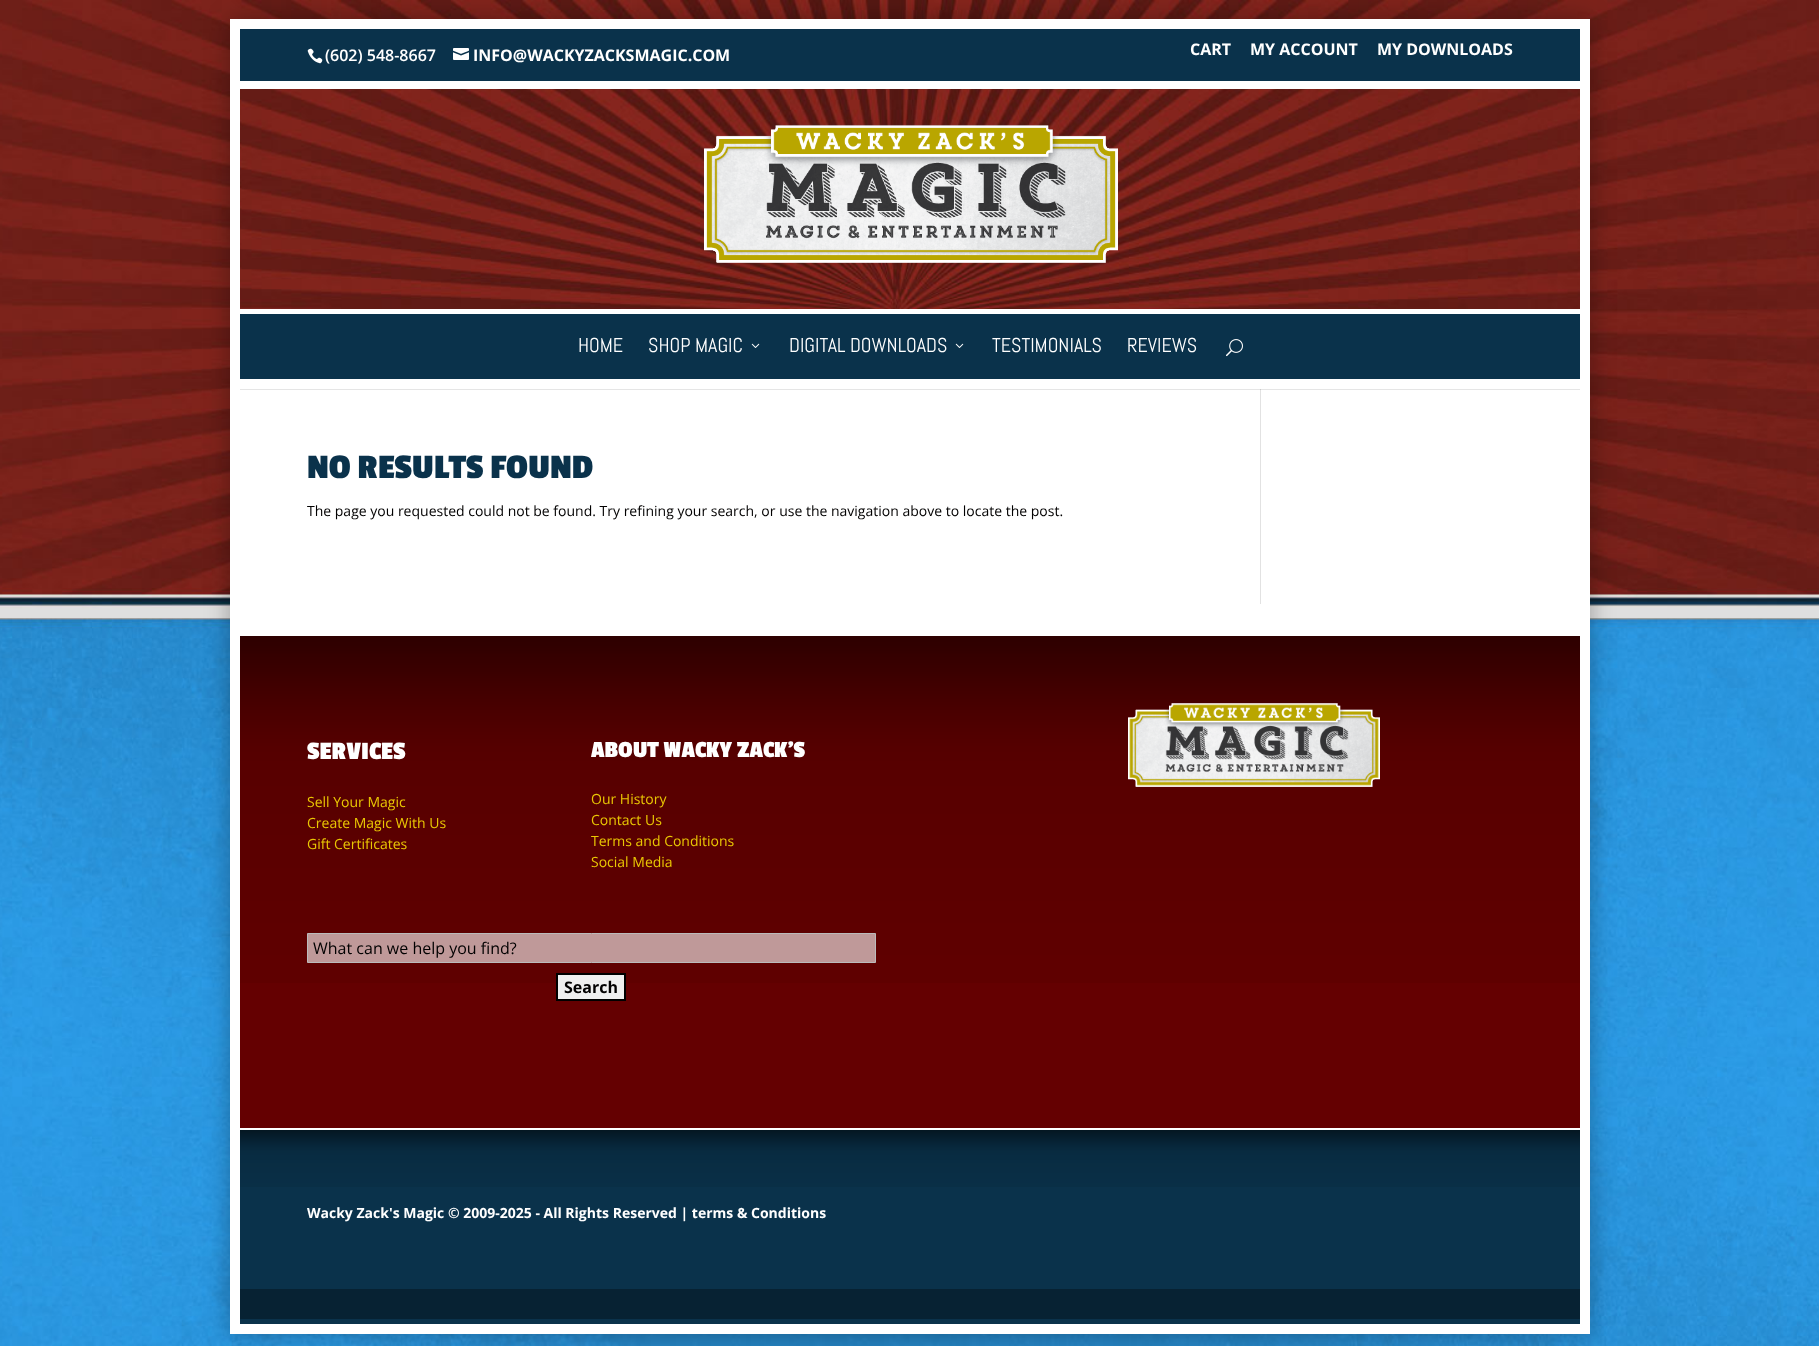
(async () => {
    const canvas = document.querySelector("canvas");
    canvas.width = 1819;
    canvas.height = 1346;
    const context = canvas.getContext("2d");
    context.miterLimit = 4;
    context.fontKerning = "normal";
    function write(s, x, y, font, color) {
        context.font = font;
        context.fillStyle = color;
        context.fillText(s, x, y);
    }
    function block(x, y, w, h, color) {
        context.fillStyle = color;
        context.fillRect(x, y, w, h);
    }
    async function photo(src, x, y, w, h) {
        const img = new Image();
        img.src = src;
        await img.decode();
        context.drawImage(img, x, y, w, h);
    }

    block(0, 0, 1819, 1346, "rgb(255, 255, 255)");
    await photo("media/1.png", 0, 0, 1819, 1346);
    context.save();
    context.beginPath();
    context.moveTo(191, 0);
    context.lineTo(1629, 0);
    context.lineTo(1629, 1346);
    context.lineTo(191, 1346);
    context.closePath();
    context.moveTo(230, 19);
    context.lineTo(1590, 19);
    context.lineTo(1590, 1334);
    context.lineTo(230, 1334);
    context.closePath();
    context.clip("evenodd");
    context.fillStyle = "rgba(0, 0, 0, 0.3)";
    context.filter = "blur(12.5px)";
    context.beginPath();
    context.rect(230, 19, 1360, 1315);
    context.fill();
    context.filter = "none";
    context.restore();
    context.strokeStyle = "rgb(255, 255, 255)";
    context.lineWidth = 10;
    context.strokeRect(235, 24, 1350, 1305);
    block(240, 29, 1340, 52, "rgb(10, 50, 75)");
    block(240, 81, 1340, 8, "rgb(255, 255, 255)");
    await photo("media/2.png", 307, 48, 16, 16);
    write("(602) 548-8667", 325, 61, "600 16px Open Sans", "rgb(255, 255, 255)");
    await photo("media/3.png", 453, 48, 16, 12);
    write("INFO@WACKYZACKSMAGIC.COM", 473, 61, "bold 16px Open Sans", "rgb(255, 255, 255)");
    write("CART", 1190, 55, "bold 16px Open Sans", "rgb(255, 255, 255)");
    write("MY ACCOUNT", 1250, 55, "bold 16px Open Sans", "rgb(255, 255, 255)");
    write("MY DOWNLOADS", 1377, 55, "bold 16px Open Sans", "rgb(255, 255, 255)");
    block(240, 379, 1340, 257, "rgb(255, 255, 255)");
    block(1260, 389, 1, 215, "rgb(226, 226, 226)");
    block(240, 389, 1340, 1, "rgba(0, 0, 0, 0.1)");
    await photo("media/4.png", 704, 125, 414, 138);
    block(240, 314, 1340, 65, "rgb(10, 50, 75)");
    block(240, 309, 1340, 5, "rgb(255, 255, 255)");
    write("HOME", 578, 352, "20px Abel", "rgb(255, 255, 255)");
    write("SHOP MAGIC", 648, 352, "20px Abel", "rgb(255, 255, 255)");
    await photo("media/5.png", 751, 343, 9, 5);
    write("DIGITAL DOWNLOADS", 789, 352, "20px Abel", "rgb(255, 255, 255)");
    await photo("media/5.png", 955, 343, 9, 5);
    write("TESTIMONIALS", 992, 352, "20px Abel", "rgb(255, 255, 255)");
    write("REVIEWS", 1127, 352, "20px Abel", "rgb(255, 255, 255)");
    await photo("media/6.png", 1226, 339, 17, 18);
    write("NO RESULTS FOUND", 307, 478, "bold 36px Passion One", "rgb(10, 50, 75)");
    write("The page you requested could not be found. Try refining your search, or use the navigation above to locate the post.", 307, 516, "14px Open Sans", "rgb(2, 1, 1)");
    block(240, 636, 1340, 492, "rgb(100, 0, 1)");
    await photo("media/7.png", 240, 636, 1340, 347);
    write("SERVICES", 307, 759, "bold 26px Passion One", "rgb(255, 255, 255)");
    write("Sell Your Magic", 307, 807, "14px Open Sans", "rgb(234, 199, 3)");
    write("Create Magic With Us", 307, 828, "14px Open Sans", "rgb(234, 199, 3)");
    write("Gift Certificates", 307, 849, "14px Open Sans", "rgb(234, 199, 3)");
    write("ABOUT WACKY ZACK'S", 591, 757, "bold 24px Passion One", "rgb(255, 255, 255)");
    write("Our History", 591, 804, "14px Open Sans", "rgb(234, 199, 3)");
    write("Contact Us", 591, 825, "14px Open Sans", "rgb(234, 199, 3)");
    write("Terms and Conditions", 591, 846, "14px Open Sans", "rgb(234, 199, 3)");
    write("Social Media", 591, 867, "14px Open Sans", "rgb(234, 199, 3)");
    context.fillStyle = "rgb(191, 153, 153)";
    context.beginPath();
    context.rect(307.5, 933.5, 568, 29);
    context.fill();
    context.strokeStyle = "rgb(187, 187, 187)";
    context.lineWidth = 1;
    context.stroke();
    write("What can we help you find?", 313, 954, "16px Open Sans", "rgb(2, 1, 1)");
    context.fillStyle = "rgb(239, 239, 239)";
    context.beginPath();
    context.rect(557, 974, 68, 26);
    context.fill();
    context.strokeStyle = "rgb(0, 0, 0)";
    context.lineWidth = 2;
    context.stroke();
    write("Search", 564, 993, "bold 16px Open Sans", "rgb(2, 1, 1)");
    await photo("media/8.png", 1128, 703, 252, 84);
    block(240, 1130, 1340, 194, "rgb(10, 50, 75)");
    await photo("media/9.png", 240, 1130, 1340, 57);
    block(240, 1128, 1340, 2, "rgb(255, 255, 255)");
    write("Wacky Zack's Magic © 2009-2025 - All Rights Reserved | terms & Conditions", 307, 1218, "bold 14px Open Sans", "rgb(255, 255, 255)");
    block(240, 1289, 1340, 30, "rgb(7, 34, 51)");
})();
